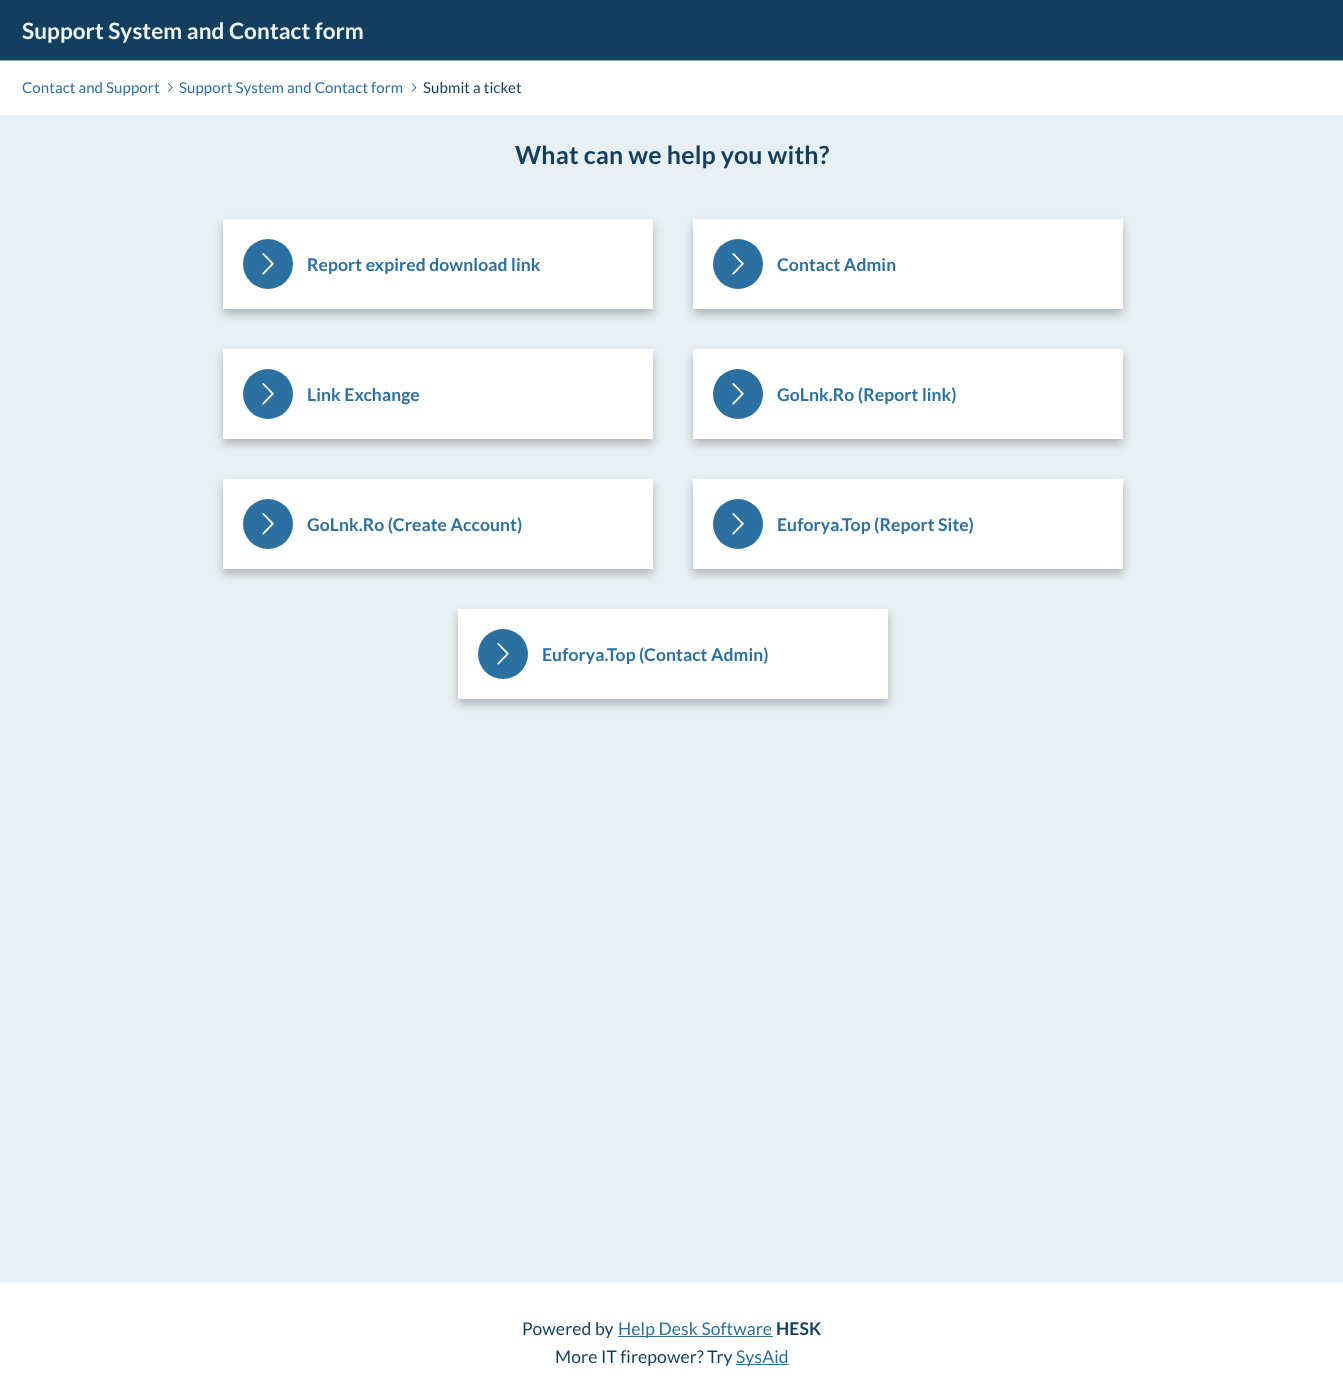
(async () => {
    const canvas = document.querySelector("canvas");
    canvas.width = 1343;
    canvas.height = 1389;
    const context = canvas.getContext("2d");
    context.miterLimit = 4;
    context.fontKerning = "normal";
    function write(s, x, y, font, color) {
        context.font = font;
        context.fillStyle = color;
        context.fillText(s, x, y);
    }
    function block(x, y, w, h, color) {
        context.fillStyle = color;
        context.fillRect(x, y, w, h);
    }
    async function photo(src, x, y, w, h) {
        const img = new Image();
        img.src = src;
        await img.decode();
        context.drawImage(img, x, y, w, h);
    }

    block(0, 0, 1343, 1389, "rgb(255, 255, 255)");
    block(0, 0, 1343, 60, "rgb(19, 62, 94)");
    block(0, 60, 1343, 1, "rgb(146, 168, 182)");
    context.letterSpacing = "0.1px";
    write("Support System and Contact form", 22, 39, "bold 22.5px Lato", "rgb(237, 246, 251)");
    write("Contact and Support", 22, 93, "15px Lato", "rgb(44, 112, 162)");
    await photo("media/1.png", 168, 83, 5, 9);
    write("Support System and Contact form", 179, 93, "15px Lato", "rgb(44, 112, 162)");
    await photo("media/2.png", 411, 83, 6, 9);
    write("Submit a ticket", 423, 93, "15px Lato", "rgb(19, 62, 94)");
    block(0, 115, 1343, 1168, "rgb(233, 240, 243)");
    context.letterSpacing = "0.15px";
    write("What can we help you with?", 515, 164, "bold 25px Lato", "rgb(19, 62, 94)");
    context.fillStyle = "rgba(38, 40, 42, 0.3)";
    context.filter = "blur(5px)";
    context.beginPath();
    context.rect(223, 224, 430, 90);
    context.fill();
    context.filter = "none";
    block(223, 219, 430, 90, "rgb(255, 255, 255)");
    context.fillStyle = "rgb(44, 112, 162)";
    context.beginPath();
    context.arc(268, 264, 25, 0, Math.PI * 2);
    context.fill();
    await photo("media/3.png", 262, 253, 12, 22);
    context.letterSpacing = "0.1px";
    write("Report expired download link", 307, 271, "bold 17.5px Lato", "rgb(44, 112, 162)");
    context.fillStyle = "rgba(38, 40, 42, 0.3)";
    context.filter = "blur(5px)";
    context.beginPath();
    context.rect(693, 224, 430, 90);
    context.fill();
    context.filter = "none";
    block(693, 219, 430, 90, "rgb(255, 255, 255)");
    context.fillStyle = "rgb(44, 112, 162)";
    context.beginPath();
    context.arc(738, 264, 25, 0, Math.PI * 2);
    context.fill();
    await photo("media/3.png", 732, 253, 12, 22);
    write("Contact Admin", 777, 271, "bold 17.5px Lato", "rgb(44, 112, 162)");
    context.fillStyle = "rgba(38, 40, 42, 0.3)";
    context.filter = "blur(5px)";
    context.beginPath();
    context.rect(223, 354, 430, 90);
    context.fill();
    context.filter = "none";
    block(223, 349, 430, 90, "rgb(255, 255, 255)");
    context.fillStyle = "rgb(44, 112, 162)";
    context.beginPath();
    context.arc(268, 394, 25, 0, Math.PI * 2);
    context.fill();
    await photo("media/4.png", 262, 383, 12, 22);
    write("Link Exchange", 307, 401, "bold 17.5px Lato", "rgb(44, 112, 162)");
    context.fillStyle = "rgba(38, 40, 42, 0.3)";
    context.filter = "blur(5px)";
    context.beginPath();
    context.rect(693, 354, 430, 90);
    context.fill();
    context.filter = "none";
    block(693, 349, 430, 90, "rgb(255, 255, 255)");
    context.fillStyle = "rgb(44, 112, 162)";
    context.beginPath();
    context.arc(738, 394, 25, 0, Math.PI * 2);
    context.fill();
    await photo("media/4.png", 732, 383, 12, 22);
    write("GoLnk.Ro (Report link)", 777, 401, "bold 17.5px Lato", "rgb(44, 112, 162)");
    context.fillStyle = "rgba(38, 40, 42, 0.3)";
    context.filter = "blur(5px)";
    context.beginPath();
    context.rect(223, 484, 430, 90);
    context.fill();
    context.filter = "none";
    block(223, 479, 430, 90, "rgb(255, 255, 255)");
    context.fillStyle = "rgb(44, 112, 162)";
    context.beginPath();
    context.arc(268, 524, 25, 0, Math.PI * 2);
    context.fill();
    await photo("media/4.png", 262, 513, 12, 22);
    write("GoLnk.Ro (Create Account)", 307, 531, "bold 17.5px Lato", "rgb(44, 112, 162)");
    context.fillStyle = "rgba(38, 40, 42, 0.3)";
    context.filter = "blur(5px)";
    context.beginPath();
    context.rect(693, 484, 430, 90);
    context.fill();
    context.filter = "none";
    block(693, 479, 430, 90, "rgb(255, 255, 255)");
    context.fillStyle = "rgb(44, 112, 162)";
    context.beginPath();
    context.arc(738, 524, 25, 0, Math.PI * 2);
    context.fill();
    await photo("media/4.png", 732, 513, 12, 22);
    write("Euforya.Top (Report Site)", 777, 531, "bold 17.5px Lato", "rgb(44, 112, 162)");
    context.fillStyle = "rgba(38, 40, 42, 0.3)";
    context.filter = "blur(5px)";
    context.beginPath();
    context.rect(458, 614, 430, 90);
    context.fill();
    context.filter = "none";
    block(458, 609, 430, 90, "rgb(255, 255, 255)");
    context.fillStyle = "rgb(44, 112, 162)";
    context.beginPath();
    context.arc(503, 654, 25, 0, Math.PI * 2);
    context.fill();
    await photo("media/4.png", 497, 643, 12, 22);
    write("Euforya.Top (Contact Admin)", 542, 661, "bold 17.5px Lato", "rgb(44, 112, 162)");
    write("Powered by", 522, 1335, "17.5px Lato", "rgb(19, 62, 94)");
    block(618, 1336, 155, 1, "rgb(44, 112, 162)");
    write("Help Desk Software", 618, 1335, "17.5px Lato", "rgb(44, 112, 162)");
    write("HESK", 776, 1335, "bold 17.5px Lato", "rgb(19, 62, 94)");
    write("More IT firepower? Try", 555, 1363, "17.5px Lato", "rgb(19, 62, 94)");
    block(736, 1364, 53, 1, "rgb(44, 112, 162)");
    write("SysAid", 736, 1363, "17.5px Lato", "rgb(44, 112, 162)");
})();
